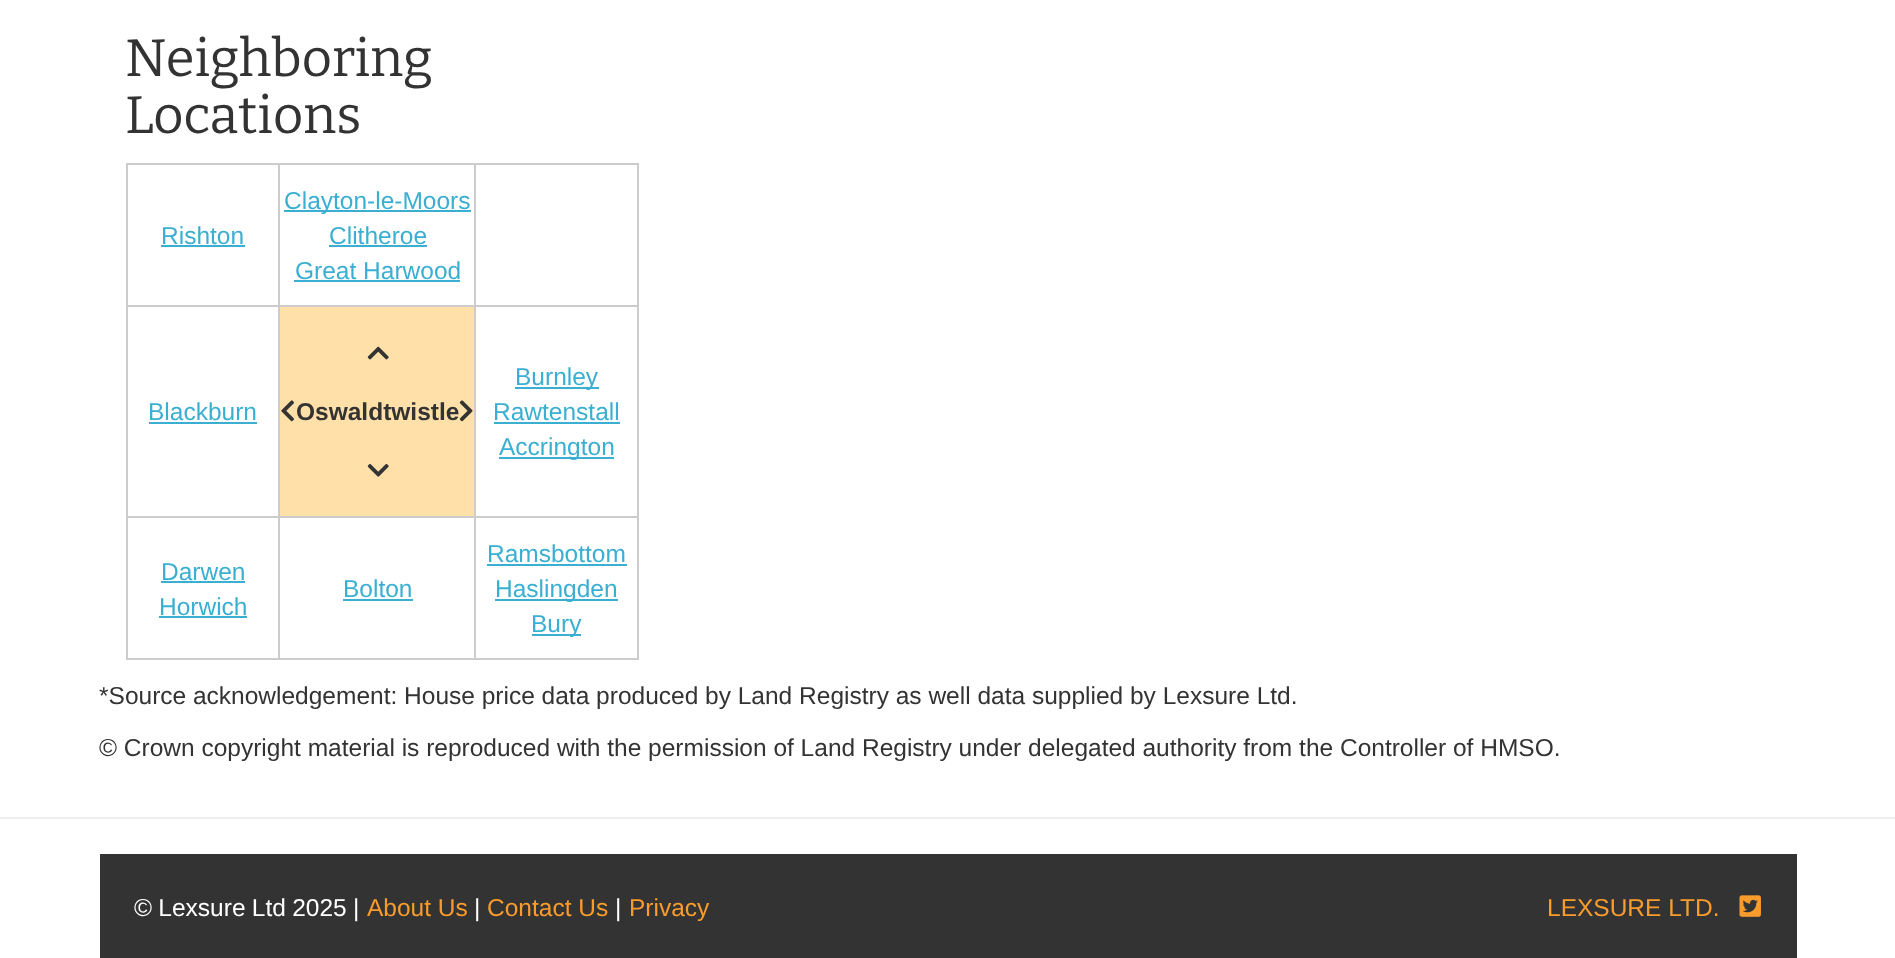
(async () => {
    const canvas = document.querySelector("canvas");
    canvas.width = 1895;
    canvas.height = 958;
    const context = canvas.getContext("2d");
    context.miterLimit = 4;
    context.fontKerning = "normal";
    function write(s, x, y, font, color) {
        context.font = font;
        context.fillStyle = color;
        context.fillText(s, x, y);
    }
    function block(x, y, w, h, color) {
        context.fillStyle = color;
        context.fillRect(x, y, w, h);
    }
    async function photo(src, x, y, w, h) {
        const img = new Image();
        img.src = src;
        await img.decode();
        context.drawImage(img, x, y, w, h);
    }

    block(0, 0, 1895, 958, "rgb(255, 255, 255)");
    write("Neighboring", 125, 76, "52.5px Bitter", "rgb(51, 51, 51)");
    write("Locations", 125, 133, "52.5px Bitter", "rgb(51, 51, 51)");
    block(126, 163, 513, 2, "rgb(204, 204, 204)");
    block(637, 163, 2, 497, "rgb(204, 204, 204)");
    block(126, 658, 513, 2, "rgb(204, 204, 204)");
    block(126, 163, 2, 497, "rgb(204, 204, 204)");
    block(278, 305, 198, 2, "rgb(204, 204, 204)");
    block(474, 516, 2, 144, "rgb(204, 204, 204)");
    block(474, 516, 165, 2, "rgb(204, 204, 204)");
    block(474, 305, 2, 213, "rgb(204, 204, 204)");
    block(278, 516, 2, 144, "rgb(204, 204, 204)");
    block(278, 516, 198, 2, "rgb(204, 204, 204)");
    block(278, 163, 2, 355, "rgb(204, 204, 204)");
    block(126, 305, 154, 2, "rgb(204, 204, 204)");
    write("Rishton", 161, 244, "24.5px Liberation Sans", "rgb(58, 175, 210)");
    block(161, 245, 84, 2, "rgb(58, 175, 210)");
    block(474, 305, 165, 2, "rgb(204, 204, 204)");
    block(474, 163, 2, 143, "rgb(204, 204, 204)");
    block(284, 210, 187, 2, "rgb(58, 175, 210)");
    write("Clayton-le-Moors", 284, 209, "24.5px Liberation Sans", "rgb(58, 175, 210)");
    write("Clitheroe", 329, 244, "24.5px Liberation Sans", "rgb(58, 175, 210)");
    block(329, 245, 98, 2, "rgb(58, 175, 210)");
    write("Great Harwood", 295, 279, "24.5px Liberation Sans", "rgb(58, 175, 210)");
    block(294, 280, 166, 2, "rgb(58, 175, 210)");
    block(126, 516, 154, 2, "rgb(204, 204, 204)");
    write("Blackburn", 148, 420, "24.5px Liberation Sans", "rgb(58, 175, 210)");
    block(149, 422, 108, 2, "rgb(58, 175, 210)");
    block(280, 307, 194, 209, "rgb(255, 224, 168)");
    await photo("media/1.png", 367, 346, 22, 14);
    await photo("media/2.png", 281, 400, 13, 22);
    write("Oswaldtwistle", 296, 420, "bold 24.5px Liberation Sans", "rgb(51, 51, 51)");
    await photo("media/3.png", 459, 400, 14, 22);
    await photo("media/4.png", 367, 464, 22, 13);
    block(515, 387, 84, 2, "rgb(58, 175, 210)");
    write("Burnley", 515, 385, "24.5px Liberation Sans", "rgb(58, 175, 210)");
    write("Rawtenstall", 493, 420, "24.5px Liberation Sans", "rgb(58, 175, 210)");
    block(494, 422, 126, 2, "rgb(58, 175, 210)");
    block(499, 457, 115, 2, "rgb(58, 175, 210)");
    write("Accrington", 499, 455, "24.5px Liberation Sans", "rgb(58, 175, 210)");
    write("Darwen", 161, 580, "24.5px Liberation Sans", "rgb(58, 175, 210)");
    block(161, 581, 84, 2, "rgb(58, 175, 210)");
    write("Horwich", 159, 615, "24.5px Liberation Sans", "rgb(58, 175, 210)");
    block(159, 616, 88, 2, "rgb(58, 175, 210)");
    write("Bolton", 343, 597, "24.5px Liberation Sans", "rgb(58, 175, 210)");
    block(343, 599, 70, 2, "rgb(58, 175, 210)");
    write("Ramsbottom", 487, 562, "24.5px Liberation Sans", "rgb(58, 175, 210)");
    block(487, 564, 140, 2, "rgb(58, 175, 210)");
    block(495, 599, 123, 2, "rgb(58, 175, 210)");
    write("Haslingden", 495, 597, "24.5px Liberation Sans", "rgb(58, 175, 210)");
    block(532, 634, 49, 2, "rgb(58, 175, 210)");
    write("Bury", 531, 632, "24.5px Liberation Sans", "rgb(58, 175, 210)");
    write("*Source acknowledgement: House price data produced by Land Registry as well data supplied by Lexsure Ltd.", 99, 704, "24.5px Liberation Sans", "rgb(51, 51, 51)");
    write("© Crown copyright material is reproduced with the permission of Land Registry under delegated authority from the Controller of HMSO.", 99, 756, "24.5px Liberation Sans", "rgb(51, 51, 51)");
    block(0, 817, 1895, 2, "rgb(238, 238, 238)");
    block(100, 854, 1697, 104, "rgb(51, 51, 51)");
    context.wordSpacing = "-0.5px";
    write("© Lexsure Ltd 2025 |", 134, 916, "24.5px Liberation Sans", "rgb(255, 255, 255)");
    context.wordSpacing = "0px";
    write("About Us", 367, 916, "24.5px Liberation Sans", "rgb(250, 156, 43)");
    write("|", 474, 916, "24.5px Liberation Sans", "rgb(255, 255, 255)");
    write("Contact Us", 487, 916, "24.5px Liberation Sans", "rgb(250, 156, 43)");
    write("|", 615, 916, "24.5px Liberation Sans", "rgb(255, 255, 255)");
    write("Privacy", 629, 916, "24.5px Liberation Sans", "rgb(250, 156, 43)");
    write("LEXSURE LTD.", 1547, 916, "24.5px Liberation Sans", "rgb(250, 156, 43)");
    await photo("media/5.png", 1739, 895, 22, 22);
})();
